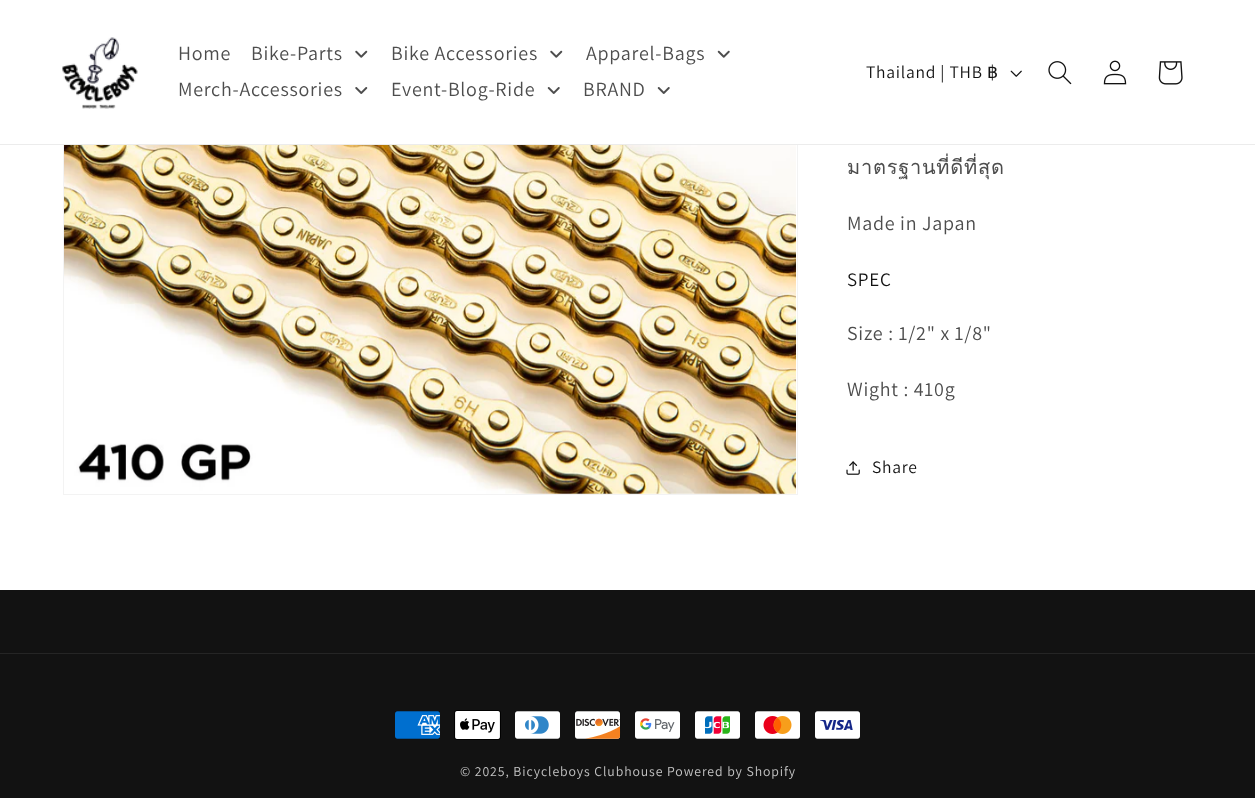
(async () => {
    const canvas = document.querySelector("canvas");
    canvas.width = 1255;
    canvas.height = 798;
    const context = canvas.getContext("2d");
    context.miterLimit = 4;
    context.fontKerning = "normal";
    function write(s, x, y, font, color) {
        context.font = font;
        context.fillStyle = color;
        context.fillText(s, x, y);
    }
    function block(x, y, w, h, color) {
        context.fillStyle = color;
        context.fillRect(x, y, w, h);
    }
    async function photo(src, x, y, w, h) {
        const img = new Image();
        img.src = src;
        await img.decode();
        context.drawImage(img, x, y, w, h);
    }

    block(0, 0, 1255, 798, "rgb(255, 255, 255)");
    context.strokeStyle = "rgb(243, 243, 243)";
    context.strokeRect(63.5, 4.5, 734, 490);
    block(63, 4, 735, 140, "rgb(255, 255, 255)");
    block(0, 144, 1255, 1, "rgb(236, 236, 236)");
    await photo("media/1.png", 62, 37, 76, 72);
    context.letterSpacing = "0.75px";
    write("Home", 178, 60, "20px Assistant", "rgb(77, 77, 77)");
    write("Bike-Parts", 251, 60, "20px Assistant", "rgb(77, 77, 77)");
    await photo("media/2.png", 355, 50, 13, 8);
    write("Bike Accessories", 391, 60, "20px Assistant", "rgb(77, 77, 77)");
    await photo("media/2.png", 550, 50, 13, 8);
    write("Apparel-Bags", 586, 60, "20px Assistant", "rgb(77, 77, 77)");
    await photo("media/3.png", 717, 50, 13, 8);
    write("Merch-Accessories", 178, 96, "20px Assistant", "rgb(77, 77, 77)");
    await photo("media/4.png", 355, 87, 13, 7);
    write("Event-Blog-Ride", 391, 96, "20px Assistant", "rgb(77, 77, 77)");
    await photo("media/5.png", 547, 87, 13, 7);
    write("BRAND", 583, 96, "20px Assistant", "rgb(77, 77, 77)");
    await photo("media/5.png", 657, 87, 13, 7);
    write("Thailand | THB", 866, 78, "17.5px Assistant", "rgb(18, 18, 18)");
    write("฿", 987, 78, "17.5px DejaVu Sans", "rgb(18, 18, 18)");
    await photo("media/6.png", 1010, 70, 12, 7);
    await photo("media/7.png", 1048, 61, 24, 24);
    await photo("media/8.png", 1103, 60, 24, 25);
    await photo("media/9.png", 1158, 61, 25, 24);
    await photo("media/10.png", 64, 145, 732, 349);
    write("มาตรฐานที่ดีที่สุด", 847, 174, "20px Loma", "rgb(77, 77, 77)");
    write("Made in Japan", 847, 230, "20px Assistant", "rgb(77, 77, 77)");
    write("SPEC", 847, 286, "19px Assistant", "rgb(18, 18, 18)");
    write("Size : 1/2\" x 1/8\"", 847, 340, "20px Assistant", "rgb(77, 77, 77)");
    write("Wight : 410g", 847, 396, "20px Assistant", "rgb(77, 77, 77)");
    await photo("media/11.png", 846, 461, 14, 14);
    write("Share", 872, 473, "17.5px Assistant", "rgb(18, 18, 18)");
    block(0, 590, 1255, 208, "rgb(18, 18, 18)");
    block(0, 653, 1255, 1, "rgb(37, 37, 37)");
    await photo("media/12.png", 395, 711, 45, 28);
    await photo("media/13.png", 454, 710, 47, 30);
    await photo("media/14.png", 515, 711, 45, 28);
    await photo("media/15.png", 575, 711, 46, 28);
    await photo("media/16.png", 635, 711, 45, 28);
    await photo("media/17.png", 695, 711, 45, 28);
    await photo("media/18.png", 755, 711, 45, 28);
    await photo("media/19.png", 815, 711, 45, 28);
    context.letterSpacing = "0.9px";
    write("© 2025, Bicycleboys Clubhouse Powered by Shopify", 460, 776, "13.75px Assistant", "rgb(196, 196, 196)");
})();
